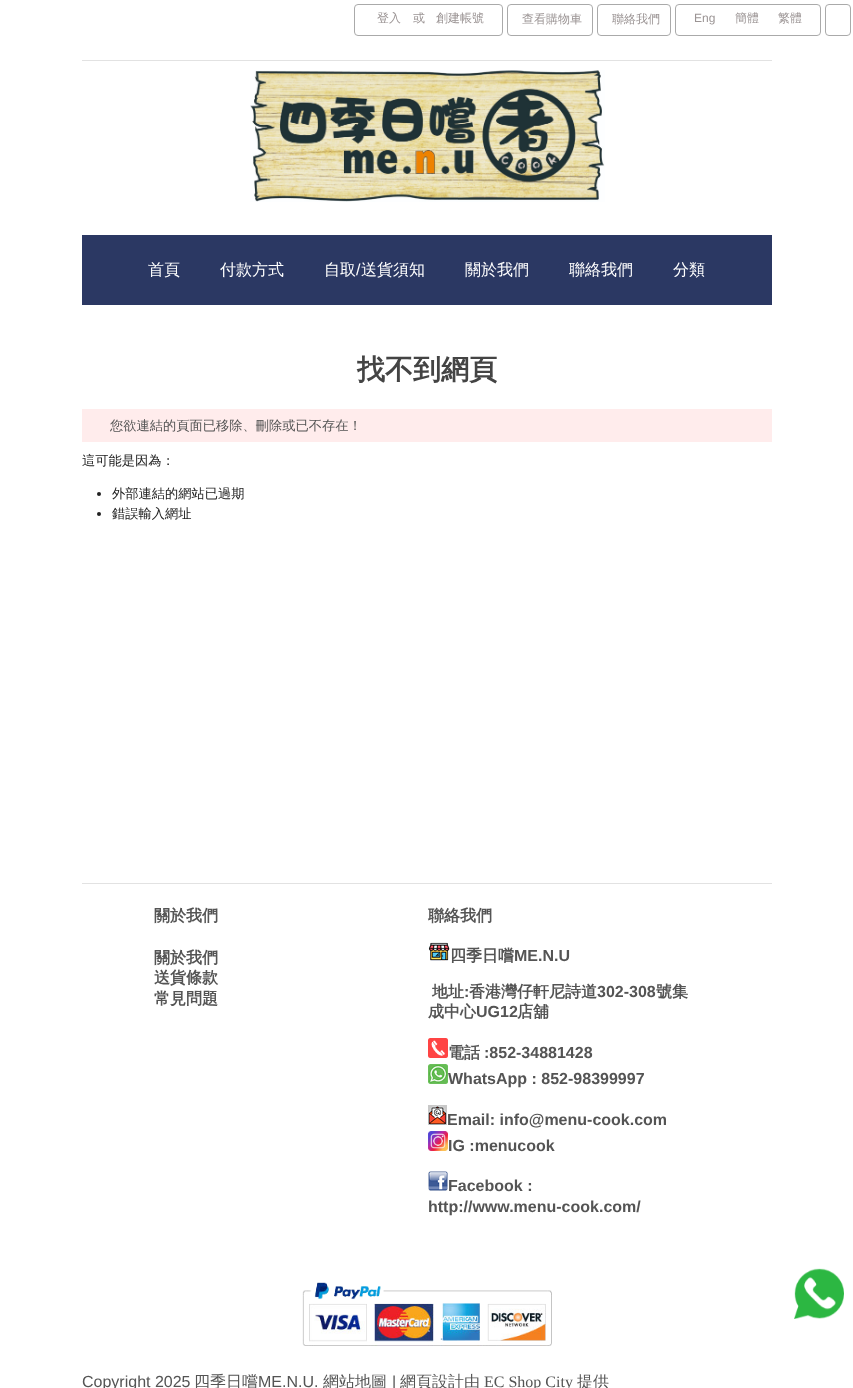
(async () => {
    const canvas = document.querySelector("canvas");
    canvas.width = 853;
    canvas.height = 1388;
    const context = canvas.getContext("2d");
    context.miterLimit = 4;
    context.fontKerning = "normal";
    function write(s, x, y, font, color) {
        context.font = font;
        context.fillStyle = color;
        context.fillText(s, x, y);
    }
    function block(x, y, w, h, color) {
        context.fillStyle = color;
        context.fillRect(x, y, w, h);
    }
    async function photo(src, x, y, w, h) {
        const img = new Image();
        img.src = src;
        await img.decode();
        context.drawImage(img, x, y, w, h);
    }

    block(0, 0, 853, 1388, "rgb(255, 255, 255)");
    context.beginPath();
    context.roundRect(354.5, 4.5, 148, 31, 3.5);
    context.strokeStyle = "rgb(170, 170, 170)";
    context.stroke();
    write("登入", 377, 22, "500 12px WenQuanYi Zen Hei", "rgb(155, 148, 148)");
    write("或", 413, 22, "500 12px WenQuanYi Zen Hei", "rgb(155, 148, 148)");
    write("創建帳號", 436, 22, "500 12px WenQuanYi Zen Hei", "rgb(155, 148, 148)");
    context.beginPath();
    context.roundRect(507.5, 4.5, 85, 31, 3.5);
    context.stroke();
    write("查看購物車", 522, 23, "500 12px WenQuanYi Zen Hei", "rgb(155, 148, 148)");
    context.beginPath();
    context.roundRect(597.5, 4.5, 73, 31, 3.5);
    context.stroke();
    write("聯絡我們", 612, 23, "500 12px WenQuanYi Zen Hei", "rgb(155, 148, 148)");
    context.beginPath();
    context.roundRect(675.5, 4.5, 145, 31, 3.5);
    context.stroke();
    write("Eng", 694, 22, "12px Liberation Sans", "rgb(155, 148, 148)");
    write("簡體", 735, 22, "500 12px WenQuanYi Zen Hei", "rgb(155, 148, 148)");
    write("繁體", 778, 22, "500 12px WenQuanYi Zen Hei", "rgb(155, 148, 148)");
    context.beginPath();
    context.roundRect(825.5, 4.5, 25, 31, 3.5);
    context.stroke();
    block(82, 60, 690, 1, "rgb(226, 226, 226)");
    await photo("media/1.png", 250, 70, 355, 132);
    block(82, 235, 690, 70, "rgb(43, 56, 99)");
    write("首頁", 148, 275, "500 16px WenQuanYi Zen Hei", "rgb(255, 255, 255)");
    write("付款方式", 220, 275, "500 16px WenQuanYi Zen Hei", "rgb(255, 255, 255)");
    write("自取", 324, 275, "500 16px WenQuanYi Zen Hei", "rgb(255, 255, 255)");
    write("/", 356, 275, "16px Liberation Sans", "rgb(255, 255, 255)");
    write("送貨須知", 361, 275, "500 16px WenQuanYi Zen Hei", "rgb(255, 255, 255)");
    write("關於我們", 465, 275, "500 16px WenQuanYi Zen Hei", "rgb(255, 255, 255)");
    write("聯絡我們", 569, 275, "500 16px WenQuanYi Zen Hei", "rgb(255, 255, 255)");
    write("分類", 673, 275, "500 16px WenQuanYi Zen Hei", "rgb(255, 255, 255)");
    await photo("media/2.png", 794, 1268, 50, 51);
    write("找不到網頁", 357, 379, "bold 28px WenQuanYi Zen Hei", "rgb(68, 68, 68)");
    block(82, 409, 690, 33, "rgb(255, 236, 236)");
    write("您欲連結的頁面已移除、刪除或已不存在！", 110, 430, "500 13.25px WenQuanYi Zen Hei", "rgb(84, 84, 84)");
    write("這可能是因為：", 82, 465, "500 13.25px WenQuanYi Zen Hei", "rgb(34, 34, 34)");
    context.beginPath();
    context.arc(99, 494, 2, 0, Math.PI * 2);
    context.fill();
    write("外部連結的網站已過期", 112, 498, "500 13.25px WenQuanYi Zen Hei", "rgb(34, 34, 34)");
    context.beginPath();
    context.arc(99, 514, 2, 0, Math.PI * 2);
    context.fill();
    write("錯誤輸入網址", 112, 518, "500 13.25px WenQuanYi Zen Hei", "rgb(34, 34, 34)");
    block(82, 883, 690, 1, "rgb(226, 226, 226)");
    write("關於我們", 154, 921, "bold 16px WenQuanYi Zen Hei", "rgb(84, 84, 84)");
    write("關於我們", 154, 963, "bold 16px WenQuanYi Zen Hei", "rgb(84, 84, 84)");
    write("送貨條款", 154, 983, "bold 16px WenQuanYi Zen Hei", "rgb(84, 84, 84)");
    write("常見問題", 154, 1004, "bold 16px WenQuanYi Zen Hei", "rgb(84, 84, 84)");
    write("聯絡我們", 428, 921, "bold 16px WenQuanYi Zen Hei", "rgb(84, 84, 84)");
    await photo("media/3.png", 428, 942, 22, 19);
    write("四季日嚐", 450, 961, "bold 16px WenQuanYi Zen Hei", "rgb(84, 84, 84)");
    write("ME.N.U", 514, 961, "bold 16px Liberation Sans", "rgb(84, 84, 84)");
    write("地址", 432, 997, "bold 16px WenQuanYi Zen Hei", "rgb(84, 84, 84)");
    write(":", 464, 997, "bold 16px Liberation Sans", "rgb(84, 84, 84)");
    write("香港灣仔軒尼詩道", 469, 997, "bold 16px WenQuanYi Zen Hei", "rgb(84, 84, 84)");
    write("302-308", 597, 997, "bold 16px Liberation Sans", "rgb(84, 84, 84)");
    write("號集", 656, 997, "bold 16px WenQuanYi Zen Hei", "rgb(84, 84, 84)");
    write("成中心", 428, 1017, "bold 16px WenQuanYi Zen Hei", "rgb(84, 84, 84)");
    write("UG12", 476, 1017, "bold 16px Liberation Sans", "rgb(84, 84, 84)");
    write("店舖", 517, 1017, "bold 16px WenQuanYi Zen Hei", "rgb(84, 84, 84)");
    await photo("media/4.png", 428, 1038, 20, 20);
    write("電話", 448, 1058, "bold 16px WenQuanYi Zen Hei", "rgb(84, 84, 84)");
    write(":852-34881428", 484, 1058, "bold 16px Liberation Sans", "rgb(84, 84, 84)");
    await photo("media/5.png", 428, 1064, 20, 20);
    write("WhatsApp : 852-98399997", 448, 1084, "bold 16px Liberation Sans", "rgb(84, 84, 84)");
    await photo("media/6.png", 428, 1105, 19, 20);
    write("Email: info@menu-cook.com", 447, 1125, "bold 16px Liberation Sans", "rgb(84, 84, 84)");
    await photo("media/7.png", 428, 1131, 20, 20);
    write("IG :menucook", 448, 1151, "bold 16px Liberation Sans", "rgb(84, 84, 84)");
    await photo("media/8.png", 428, 1171, 20, 20);
    write("Facebook :", 448, 1191, "bold 16px Liberation Sans", "rgb(84, 84, 84)");
    write("http://www.menu-cook.com/", 428, 1212, "bold 16px Liberation Sans", "rgb(84, 84, 84)");
    await photo("media/9.png", 302, 1282, 250, 64);
    write("Copyright 2025", 82, 1387, "16px Liberation Sans", "rgb(84, 84, 84)");
    write("四季日嚐", 194, 1387, "500 16px WenQuanYi Zen Hei", "rgb(84, 84, 84)");
    write("ME.N.U.", 258, 1387, "16px Liberation Sans", "rgb(84, 84, 84)");
    write("網站地圖", 323, 1387, "500 16px WenQuanYi Zen Hei", "rgb(84, 84, 84)");
    write("|", 392, 1387, "16px Liberation Sans", "rgb(84, 84, 84)");
    write("網頁設計由", 400, 1387, "500 16px WenQuanYi Zen Hei", "rgb(84, 84, 84)");
    write("EC Shop City", 484, 1387, "16px Liberation Serif", "rgb(84, 84, 84)");
    write("提供", 577, 1387, "500 16px WenQuanYi Zen Hei", "rgb(84, 84, 84)");
})();
